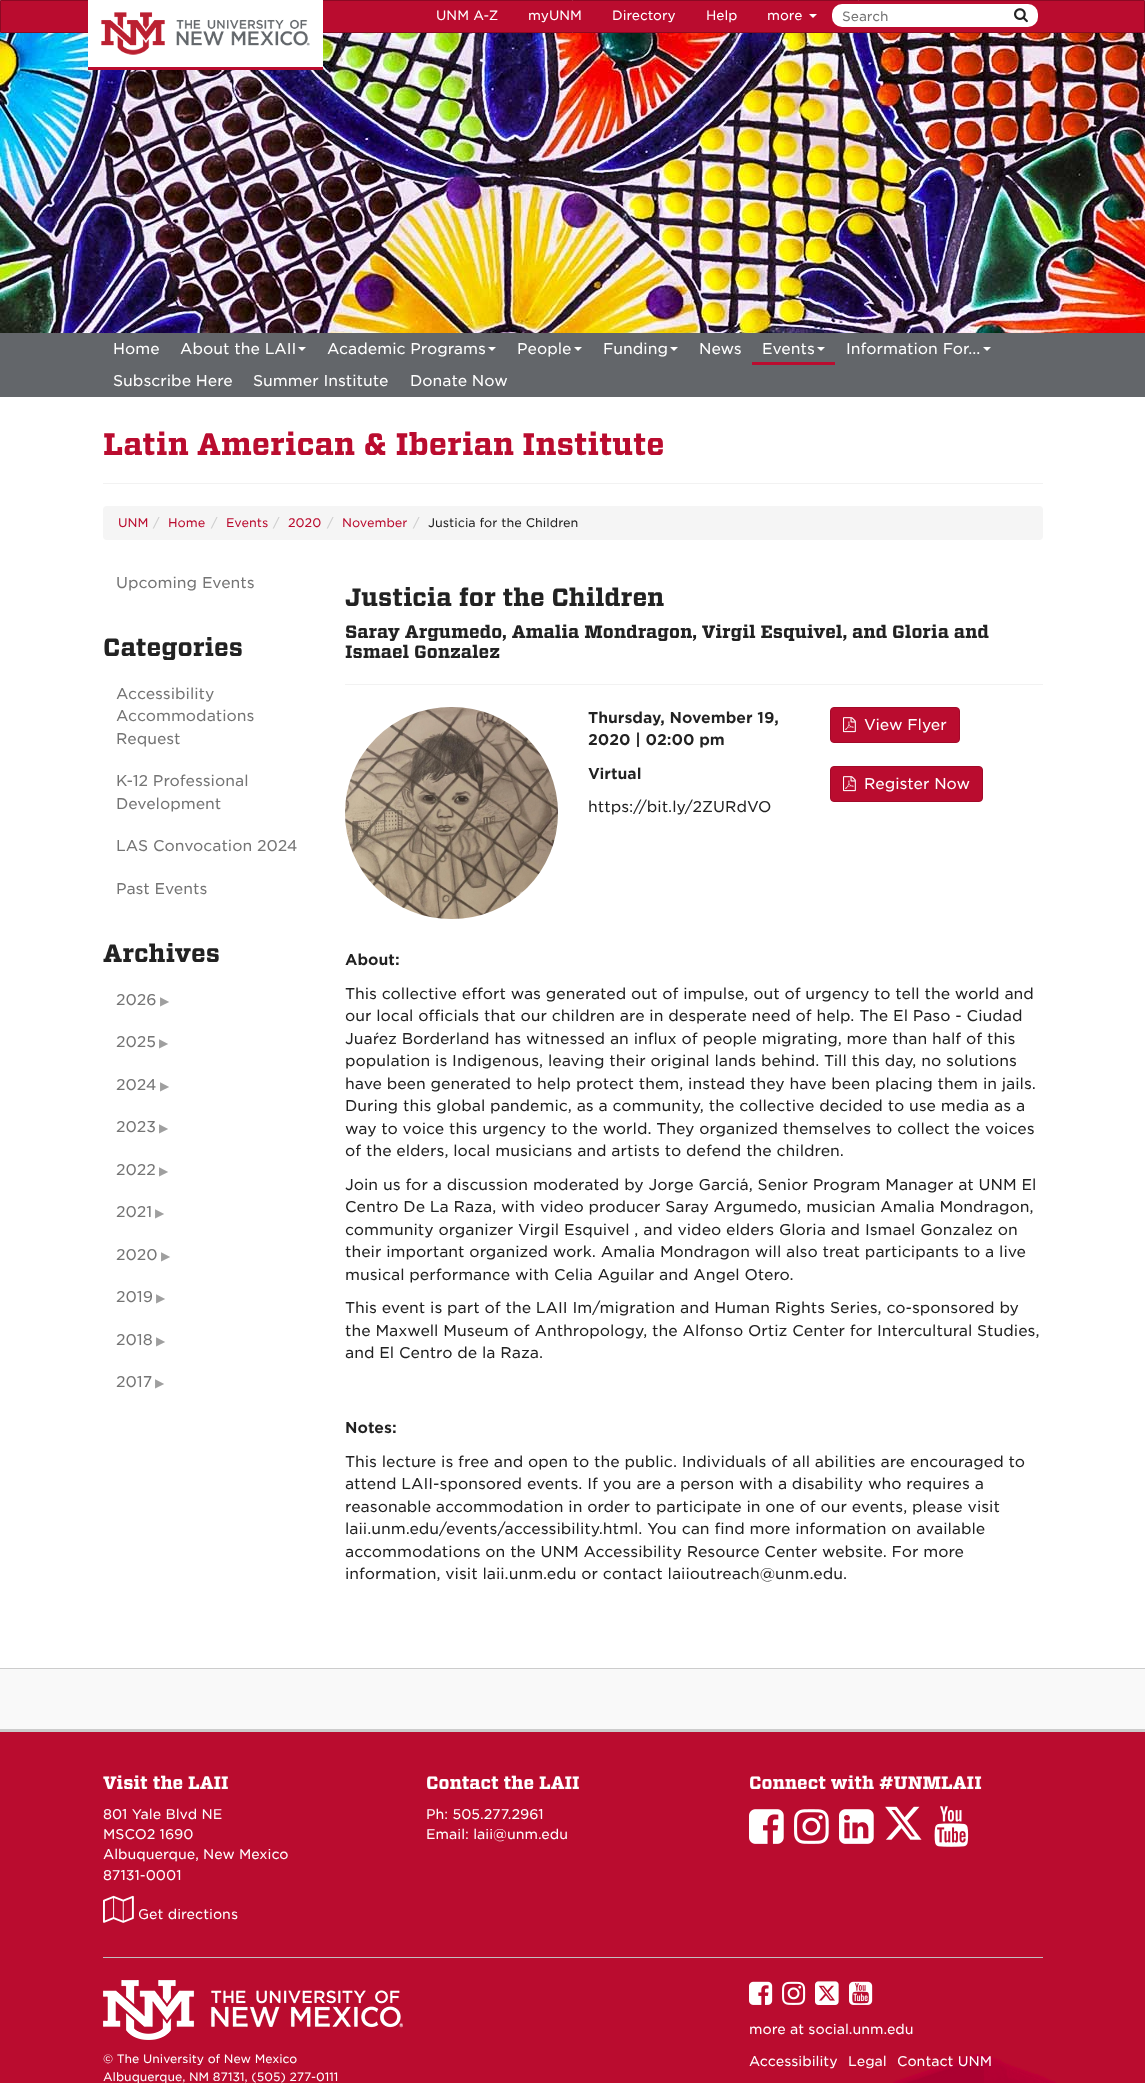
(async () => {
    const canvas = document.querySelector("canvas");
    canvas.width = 1145;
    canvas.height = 2083;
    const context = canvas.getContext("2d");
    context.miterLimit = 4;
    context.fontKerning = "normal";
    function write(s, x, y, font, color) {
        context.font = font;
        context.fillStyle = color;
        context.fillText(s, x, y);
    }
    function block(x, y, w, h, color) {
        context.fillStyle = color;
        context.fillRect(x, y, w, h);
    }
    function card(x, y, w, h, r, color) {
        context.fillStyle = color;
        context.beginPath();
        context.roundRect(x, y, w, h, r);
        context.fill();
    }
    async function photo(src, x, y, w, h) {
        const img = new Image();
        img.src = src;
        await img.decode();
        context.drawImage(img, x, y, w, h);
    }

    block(0, 0, 1145, 2083, "rgb(255, 255, 255)");
    context.fillStyle = "rgb(186, 12, 47)";
    context.beginPath();
    context.rect(0.5, 0.5, 1144, 32);
    context.fill();
    context.strokeStyle = "rgb(138, 9, 35)";
    context.stroke();
    await photo("media/3.png", 0, 33, 1145, 300);
    block(88, 0, 235, 67, "rgb(255, 255, 255)");
    await photo("media/1.png", 101, 12, 209, 43);
    block(88, 67, 235, 3, "rgb(186, 12, 47)");
    write("UNM A-Z", 436, 20, "13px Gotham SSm", "rgb(255, 255, 255)");
    write("myUNM", 528, 20, "13px Gotham SSm", "rgb(255, 255, 255)");
    write("Directory", 612, 20, "13px Gotham SSm", "rgb(255, 255, 255)");
    write("Help", 706, 20, "13px Gotham SSm", "rgb(255, 255, 255)");
    write("more", 767, 20, "13px Gotham SSm", "rgb(255, 255, 255)");
    context.beginPath();
    context.moveTo(809, 14);
    context.lineTo(817, 14);
    context.lineTo(813, 18);
    context.closePath();
    context.fill();
    card(832, 4, 206, 23, 10, "rgb(255, 255, 255)");
    write("Search", 842, 21, "13px Gotham SSm", "rgb(117, 117, 117)");
    await photo("media/2.png", 1014, 8, 14, 15);
    block(0, 333, 1145, 64, "rgb(99, 102, 106)");
    write("Home", 113, 354, "15px Gotham SSm", "rgb(255, 255, 255)");
    write("About the LAII", 180, 354, "15px Gotham SSm", "rgb(255, 255, 255)");
    context.beginPath();
    context.moveTo(298, 347);
    context.lineTo(306, 347);
    context.lineTo(302, 351);
    context.closePath();
    context.fill();
    write("Academic Programs", 327, 354, "15px Gotham SSm", "rgb(255, 255, 255)");
    context.beginPath();
    context.moveTo(488, 347);
    context.lineTo(496, 347);
    context.lineTo(492, 351);
    context.closePath();
    context.fill();
    write("People", 517, 354, "15px Gotham SSm", "rgb(255, 255, 255)");
    context.beginPath();
    context.moveTo(574, 347);
    context.lineTo(582, 347);
    context.lineTo(578, 351);
    context.closePath();
    context.fill();
    write("Funding", 603, 354, "15px Gotham SSm", "rgb(255, 255, 255)");
    context.beginPath();
    context.moveTo(670, 347);
    context.lineTo(678, 347);
    context.lineTo(674, 351);
    context.closePath();
    context.fill();
    write("News", 699, 354, "15px Gotham SSm", "rgb(255, 255, 255)");
    write("Events", 762, 354, "15px Gotham SSm", "rgb(255, 255, 255)");
    context.beginPath();
    context.moveTo(817, 347);
    context.lineTo(825, 347);
    context.lineTo(821, 351);
    context.closePath();
    context.fill();
    block(752, 362, 83, 3, "rgb(186, 12, 47)");
    write("Information For...", 846, 354, "15px Gotham SSm", "rgb(255, 255, 255)");
    context.beginPath();
    context.moveTo(983, 347);
    context.lineTo(991, 347);
    context.lineTo(987, 351);
    context.closePath();
    context.fill();
    write("Subscribe Here", 113, 386, "15px Gotham SSm", "rgb(255, 255, 255)");
    write("Summer Institute", 253, 386, "15px Gotham SSm", "rgb(255, 255, 255)");
    write("Donate Now", 410, 386, "15px Gotham SSm", "rgb(255, 255, 255)");
    write("Latin American & Iberian Institute", 103, 455, "900 31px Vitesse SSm", "rgb(186, 12, 47)");
    block(103, 483, 940, 1, "rgb(242, 242, 242)");
    card(103, 506, 940, 34, 4, "rgb(245, 245, 245)");
    write("UNM", 118, 527, "12px Gotham SSm", "rgb(186, 12, 47)");
    write("/", 153, 527, "12px Gotham SSm", "rgb(204, 204, 204)");
    write("Home", 168, 527, "12px Gotham SSm", "rgb(186, 12, 47)");
    write("/", 211, 527, "12px Gotham SSm", "rgb(204, 204, 204)");
    write("Events", 226, 527, "12px Gotham SSm", "rgb(186, 12, 47)");
    write("/", 273, 527, "12px Gotham SSm", "rgb(204, 204, 204)");
    write("2020", 288, 527, "12px Gotham SSm", "rgb(186, 12, 47)");
    write("/", 327, 527, "12px Gotham SSm", "rgb(204, 204, 204)");
    write("November", 342, 527, "12px Gotham SSm", "rgb(186, 12, 47)");
    write("/", 413, 527, "12px Gotham SSm", "rgb(204, 204, 204)");
    write("Justicia for the Children", 428, 527, "12px Gotham SSm", "rgb(34, 34, 34)");
    write("Upcoming Events", 116, 588, "15px Gotham SSm", "rgb(117, 117, 117)");
    write("Categories", 103, 656, "900 25px Vitesse SSm", "rgb(34, 34, 34)");
    write("Accessibility", 116, 699, "15px Gotham SSm", "rgb(117, 117, 117)");
    write("Accommodations", 116, 721, "15px Gotham SSm", "rgb(117, 117, 117)");
    write("Request", 116, 744, "15px Gotham SSm", "rgb(117, 117, 117)");
    write("K-12 Professional", 116, 786, "15px Gotham SSm", "rgb(117, 117, 117)");
    write("Development", 116, 809, "15px Gotham SSm", "rgb(117, 117, 117)");
    write("LAS Convocation 2024", 116, 851, "15px Gotham SSm", "rgb(117, 117, 117)");
    write("Past Events", 116, 894, "15px Gotham SSm", "rgb(117, 117, 117)");
    write("Archives", 103, 962, "900 25px Vitesse SSm", "rgb(34, 34, 34)");
    write("2026", 116, 1005, "15px Gotham SSm", "rgb(117, 117, 117)");
    write("▶", 160, 1005, "12px DejaVu Sans", "rgb(159, 159, 159)");
    write("2025", 116, 1047, "15px Gotham SSm", "rgb(117, 117, 117)");
    write("▶", 159, 1047, "12px DejaVu Sans", "rgb(159, 159, 159)");
    write("2024", 116, 1090, "15px Gotham SSm", "rgb(117, 117, 117)");
    write("▶", 160, 1090, "12px DejaVu Sans", "rgb(159, 159, 159)");
    write("2023", 116, 1132, "15px Gotham SSm", "rgb(117, 117, 117)");
    write("▶", 159, 1132, "12px DejaVu Sans", "rgb(159, 159, 159)");
    write("2022", 116, 1175, "15px Gotham SSm", "rgb(117, 117, 117)");
    write("▶", 159, 1175, "12px DejaVu Sans", "rgb(159, 159, 159)");
    write("2021", 116, 1217, "15px Gotham SSm", "rgb(117, 117, 117)");
    write("▶", 155, 1217, "12px DejaVu Sans", "rgb(159, 159, 159)");
    write("2020", 116, 1260, "15px Gotham SSm", "rgb(117, 117, 117)");
    write("▶", 161, 1260, "12px DejaVu Sans", "rgb(159, 159, 159)");
    write("2019", 116, 1302, "15px Gotham SSm", "rgb(117, 117, 117)");
    write("▶", 156, 1302, "12px DejaVu Sans", "rgb(159, 159, 159)");
    write("2018", 116, 1345, "15px Gotham SSm", "rgb(117, 117, 117)");
    write("▶", 156, 1345, "12px DejaVu Sans", "rgb(159, 159, 159)");
    write("2017", 116, 1387, "15px Gotham SSm", "rgb(117, 117, 117)");
    write("▶", 155, 1387, "12px DejaVu Sans", "rgb(159, 159, 159)");
    write("Justicia for the Children", 345, 606, "900 25px Vitesse SSm", "rgb(34, 34, 34)");
    write("Saray Argumedo, Amalia Mondragon, Virgil Esquivel, and Gloria and", 345, 638, "900 18px Vitesse SSm", "rgb(34, 34, 34)");
    write("Ismael Gonzalez", 345, 658, "900 18px Vitesse SSm", "rgb(34, 34, 34)");
    block(345, 684, 698, 1, "rgb(242, 242, 242)");
    await photo("media/4.png", 345, 707, 213, 212);
    write("Thursday, November 19,", 588, 723, "bold 15px Gotham SSm", "rgb(34, 34, 34)");
    write("2020 | 02:00 pm", 588, 745, "bold 15px Gotham SSm", "rgb(34, 34, 34)");
    write("Virtual", 588, 779, "bold 15px Gotham SSm", "rgb(34, 34, 34)");
    write("https://bit.ly/2ZURdVO", 588, 812, "15px Gotham SSm", "rgb(34, 34, 34)");
    context.fillStyle = "rgb(186, 12, 47)";
    context.beginPath();
    context.roundRect(830.5, 707.5, 129, 35, 3.5);
    context.fill();
    context.strokeStyle = "rgb(162, 10, 41)";
    context.stroke();
    await photo("media/5.png", 843, 717, 13, 16);
    write("View Flyer", 864, 730, "15px Gotham SSm", "rgb(255, 255, 255)");
    context.fillStyle = "rgb(186, 12, 47)";
    context.beginPath();
    context.roundRect(830.5, 766.5, 152, 35, 3.5);
    context.fill();
    context.stroke();
    await photo("media/5.png", 843, 776, 13, 16);
    write("Register Now", 864, 789, "15px Gotham SSm", "rgb(255, 255, 255)");
    write("About:", 345, 965, "bold 15px Gotham SSm", "rgb(34, 34, 34)");
    write("This collective effort was generated out of impulse, out of urgency to tell the world and", 345, 999, "15px Gotham SSm", "rgb(34, 34, 34)");
    write("our local officials that our children are in desperate need of help. The El Paso - Ciudad", 345, 1021, "15px Gotham SSm", "rgb(34, 34, 34)");
    write("Juárez Borderland has witnessed an influx of people migrating, more than half of this", 345, 1044, "15px Gotham SSm", "rgb(34, 34, 34)");
    write("population is Indigenous, leaving their original lands behind. Till this day, no solutions", 345, 1066, "15px Gotham SSm", "rgb(34, 34, 34)");
    write("have been generated to help protect them, instead they have been placing them in jails.", 345, 1089, "15px Gotham SSm", "rgb(34, 34, 34)");
    write("During this global pandemic, as a community, the collective decided to use media as a", 345, 1111, "15px Gotham SSm", "rgb(34, 34, 34)");
    write("way to voice this urgency to the world. They organized themselves to collect the voices", 345, 1134, "15px Gotham SSm", "rgb(34, 34, 34)");
    write("of the elders, local musicians and artists to defend the children.", 345, 1156, "15px Gotham SSm", "rgb(34, 34, 34)");
    write("Join us for a discussion moderated by Jorge García, Senior Program Manager at UNM El", 345, 1190, "15px Gotham SSm", "rgb(34, 34, 34)");
    write("Centro De La Raza, with video producer Saray Argumedo, musician Amalia Mondragon,", 345, 1212, "15px Gotham SSm", "rgb(34, 34, 34)");
    write("community organizer Virgil Esquivel , and video elders Gloria and Ismael Gonzalez on", 345, 1235, "15px Gotham SSm", "rgb(34, 34, 34)");
    write("their important organized work. Amalia Mondragon will also treat participants to a live", 345, 1257, "15px Gotham SSm", "rgb(34, 34, 34)");
    write("musical performance with Celia Aguilar and Angel Otero.", 345, 1280, "15px Gotham SSm", "rgb(34, 34, 34)");
    write("This event is part of the LAII Im/migration and Human Rights Series, co-sponsored by", 345, 1313, "15px Gotham SSm", "rgb(34, 34, 34)");
    write("the Maxwell Museum of Anthropology, the Alfonso Ortiz Center for Intercultural Studies,", 345, 1336, "15px Gotham SSm", "rgb(34, 34, 34)");
    write("and El Centro de la Raza.", 345, 1358, "15px Gotham SSm", "rgb(34, 34, 34)");
    write("Notes:", 345, 1433, "bold 15px Gotham SSm", "rgb(34, 34, 34)");
    write("This lecture is free and open to the public. Individuals of all abilities are encouraged to", 345, 1467, "15px Gotham SSm", "rgb(34, 34, 34)");
    write("attend LAII-sponsored events. If you are a person with a disability who requires a", 345, 1489, "15px Gotham SSm", "rgb(34, 34, 34)");
    write("reasonable accommodation in order to participate in one of our events, please visit", 345, 1512, "15px Gotham SSm", "rgb(34, 34, 34)");
    write("laii.unm.edu/events/accessibility.html. You can find more information on available", 345, 1534, "15px Gotham SSm", "rgb(34, 34, 34)");
    write("accommodations on the UNM Accessibility Resource Center website. For more", 345, 1557, "15px Gotham SSm", "rgb(34, 34, 34)");
    write("information, visit laii.unm.edu or contact laiioutreach@unm.edu.", 345, 1579, "15px Gotham SSm", "rgb(34, 34, 34)");
    block(0, 1669, 1145, 60, "rgb(249, 249, 249)");
    block(0, 1668, 1145, 1, "rgb(204, 204, 204)");
    block(0, 1732, 1145, 351, "rgb(186, 12, 47)");
    await photo("media/6.png", 893, 2054, 163, 29);
    block(0, 1729, 1145, 3, "rgb(204, 204, 204)");
    write("Visit the LAII", 103, 1789, "900 18px Vitesse SSm", "rgb(255, 255, 255)");
    write("801 Yale Blvd NE", 103, 1819, "13.5px Gotham SSm", "rgb(255, 255, 255)");
    write("MSCO2 1690", 103, 1839, "13.5px Gotham SSm", "rgb(255, 255, 255)");
    write("Albuquerque, New Mexico", 103, 1859, "13.5px Gotham SSm", "rgb(255, 255, 255)");
    write("87131-0001", 103, 1880, "13.5px Gotham SSm", "rgb(255, 255, 255)");
    await photo("media/7.png", 103, 1895, 31, 28);
    write("Get directions", 138, 1919, "13.5px Gotham SSm", "rgb(255, 255, 255)");
    write("Contact the LAII", 426, 1789, "900 18px Vitesse SSm", "rgb(255, 255, 255)");
    write("Ph: 505.277.2961", 426, 1819, "13.5px Gotham SSm", "rgb(255, 255, 255)");
    write("Email: laii@unm.edu", 426, 1839, "13.5px Gotham SSm", "rgb(255, 255, 255)");
    write("Connect with #UNMLAII", 749, 1789, "900 18px Vitesse SSm", "rgb(255, 255, 255)");
    await photo("media/8.png", 749, 1809, 35, 35);
    await photo("media/9.png", 794, 1809, 35, 35);
    await photo("media/10.png", 839, 1809, 35, 35);
    await photo("media/11.png", 885, 1806, 37, 34);
    await photo("media/12.png", 934, 1806, 35, 41);
    block(103, 1957, 940, 1, "rgb(192, 192, 192)");
    await photo("media/13.png", 103, 1980, 300, 60);
    write("© The University of New Mexico", 103, 2063, "11.6px Gotham SSm", "rgb(255, 255, 255)");
    write("Albuquerque, NM 87131, (505) 277-0111", 103, 2081, "11.6px Gotham SSm", "rgb(255, 255, 255)");
    await photo("media/14.png", 749, 1981, 24, 24);
    await photo("media/15.png", 782, 1981, 24, 24);
    await photo("media/16.png", 815, 1981, 24, 24);
    await photo("media/17.png", 849, 1981, 24, 24);
    write("more at social.unm.edu", 749, 2034, "13.5px Gotham SSm", "rgb(255, 255, 255)");
    write("Accessibility", 749, 2066, "13.5px Gotham SSm", "rgb(255, 255, 255)");
    write("Legal", 848, 2066, "13.5px Gotham SSm", "rgb(255, 255, 255)");
    write("Contact UNM", 897, 2066, "13.5px Gotham SSm", "rgb(255, 255, 255)");
})();
